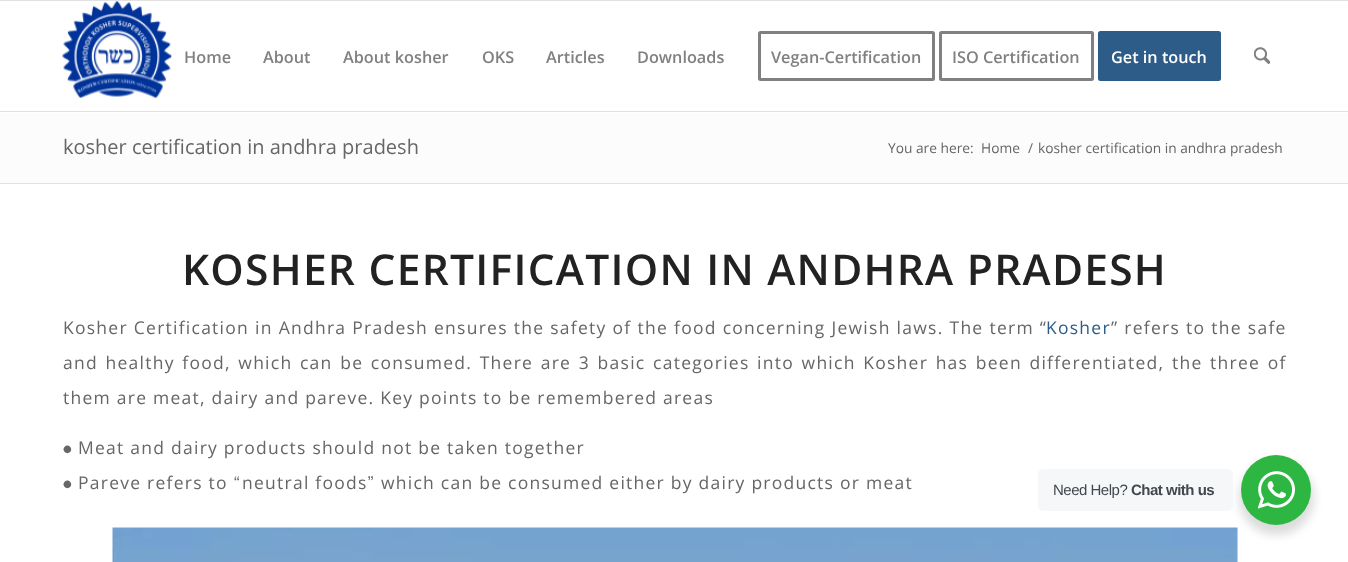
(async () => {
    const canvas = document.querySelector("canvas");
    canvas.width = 1348;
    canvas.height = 562;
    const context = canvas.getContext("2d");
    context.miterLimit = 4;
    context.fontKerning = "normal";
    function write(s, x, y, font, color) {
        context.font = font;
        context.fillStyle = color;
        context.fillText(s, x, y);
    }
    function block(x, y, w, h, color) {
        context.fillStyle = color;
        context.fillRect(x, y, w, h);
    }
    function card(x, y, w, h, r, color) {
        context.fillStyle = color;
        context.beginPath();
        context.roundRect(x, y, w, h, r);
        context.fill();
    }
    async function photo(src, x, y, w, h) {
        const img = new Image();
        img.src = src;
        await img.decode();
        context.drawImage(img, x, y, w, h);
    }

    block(0, 0, 1348, 562, "rgb(255, 255, 255)");
    block(0, 0, 1348, 1, "rgb(225, 225, 225)");
    block(0, 111, 1348, 1, "rgb(225, 225, 225)");
    await photo("media/1.png", 62, 1, 110, 97);
    write("Home", 184, 63, "600 16.25px Open Sans", "rgb(128, 128, 128)");
    write("About", 263, 63, "600 16.25px Open Sans", "rgb(128, 128, 128)");
    write("About kosher", 343, 63, "600 16.25px Open Sans", "rgb(128, 128, 128)");
    write("OKS", 482, 63, "600 16.25px Open Sans", "rgb(128, 128, 128)");
    write("Articles", 546, 63, "600 16.25px Open Sans", "rgb(128, 128, 128)");
    write("Downloads", 637, 63, "600 16.25px Open Sans", "rgb(128, 128, 128)");
    context.beginPath();
    context.roundRect(759.5, 32.5, 174, 47, 1);
    context.strokeStyle = "rgb(128, 128, 128)";
    context.lineWidth = 3;
    context.stroke();
    write("Vegan-Certification", 771, 63, "600 16.25px Open Sans", "rgb(128, 128, 128)");
    context.beginPath();
    context.roundRect(940.5, 32.5, 152, 47, 1);
    context.stroke();
    write("ISO Certification", 952, 63, "600 16.25px Open Sans", "rgb(128, 128, 128)");
    context.fillStyle = "rgb(45, 92, 136)";
    context.beginPath();
    context.roundRect(1099.5, 32.5, 120, 47, 1);
    context.fill();
    context.strokeStyle = "rgb(45, 92, 136)";
    context.stroke();
    write("Get in touch", 1111, 63, "600 16.25px Open Sans", "rgb(255, 255, 255)");
    await photo("media/2.png", 1254, 47, 16, 17);
    block(0, 113, 1348, 70, "rgb(252, 252, 252)");
    write("kosher certification in andhra pradesh", 63, 154, "20px Open Sans", "rgb(102, 102, 102)");
    write("You are here:", 888, 153, "13.75px Open Sans", "rgb(102, 102, 102)");
    write("Home", 981, 153, "13.75px Open Sans", "rgb(102, 102, 102)");
    write("/", 1028, 153, "13.75px Open Sans", "rgb(102, 102, 102)");
    write("kosher certification in andhra pradesh", 1038, 153, "13.75px Open Sans", "rgb(102, 102, 102)");
    block(0, 183, 1348, 1, "rgb(225, 225, 225)");
    context.letterSpacing = "1.25px";
    write("KOSHER CERTIFICATION IN ANDHRA PRADESH", 182, 285, "600 42.5px Open Sans", "rgb(34, 34, 34)");
    context.wordSpacing = "0.2px";
    write("Kosher Certification in Andhra Pradesh ensures the safety of the food concerning Jewish laws. The term “", 63, 334, "17.5px Open Sans", "rgb(102, 102, 102)");
    context.wordSpacing = "0px";
    write("Kosher", 1046, 334, "17.5px Open Sans", "rgb(45, 92, 136)");
    context.wordSpacing = "0.2px";
    write("” refers to the safe", 1111, 334, "17.5px Open Sans", "rgb(102, 102, 102)");
    context.wordSpacing = "1.8px";
    write("and healthy food, which can be consumed. There are 3 basic categories into which Kosher has been differentiated, the three of", 63, 369, "17.5px Open Sans", "rgb(102, 102, 102)");
    context.wordSpacing = "0px";
    write("them are meat, dairy and pareve. Key points to be remembered areas", 63, 404, "17.5px Open Sans", "rgb(102, 102, 102)");
    write("⦁", 63, 454, "17.5px FreeSans", "rgb(102, 102, 102)");
    write("Meat and dairy products should not be taken together", 78, 454, "17.5px Open Sans", "rgb(102, 102, 102)");
    write("Pareve refers to", 78, 489, "17.5px Open Sans", "rgb(102, 102, 102)");
    write("“", 233, 489, "17.5px FreeSans", "rgb(102, 102, 102)");
    write("neutral foods", 242, 489, "17.5px Open Sans", "rgb(102, 102, 102)");
    write("”", 367, 489, "17.5px FreeSans", "rgb(102, 102, 102)");
    write("which can be consumed either by dairy products or meat", 381, 489, "17.5px Open Sans", "rgb(102, 102, 102)");
    write("⦁", 63, 489, "17.5px FreeSans", "rgb(102, 102, 102)");
    await photo("media/3.png", 112, 527, 1126, 35);
    context.fillStyle = "rgba(0, 0, 0, 0.14)";
    context.filter = "blur(5px)";
    context.beginPath();
    context.roundRect(1239, 460, 75, 75, 37.5);
    context.fill();
    context.filter = "none";
    card(1038, 469, 195, 42, 5, "rgb(245, 247, 249)");
    context.letterSpacing = "-0.5px";
    write("Need Help?", 1053, 495, "15px Liberation Sans", "rgb(67, 71, 78)");
    write("Chat with us", 1131, 495, "bold 15px Liberation Sans", "rgb(67, 71, 78)");
    context.fillStyle = "rgb(45, 183, 66)";
    context.beginPath();
    context.arc(1276, 490, 35, 0, Math.PI * 2);
    context.fill();
    await photo("media/4.png", 1258, 471, 37, 38);
})();
